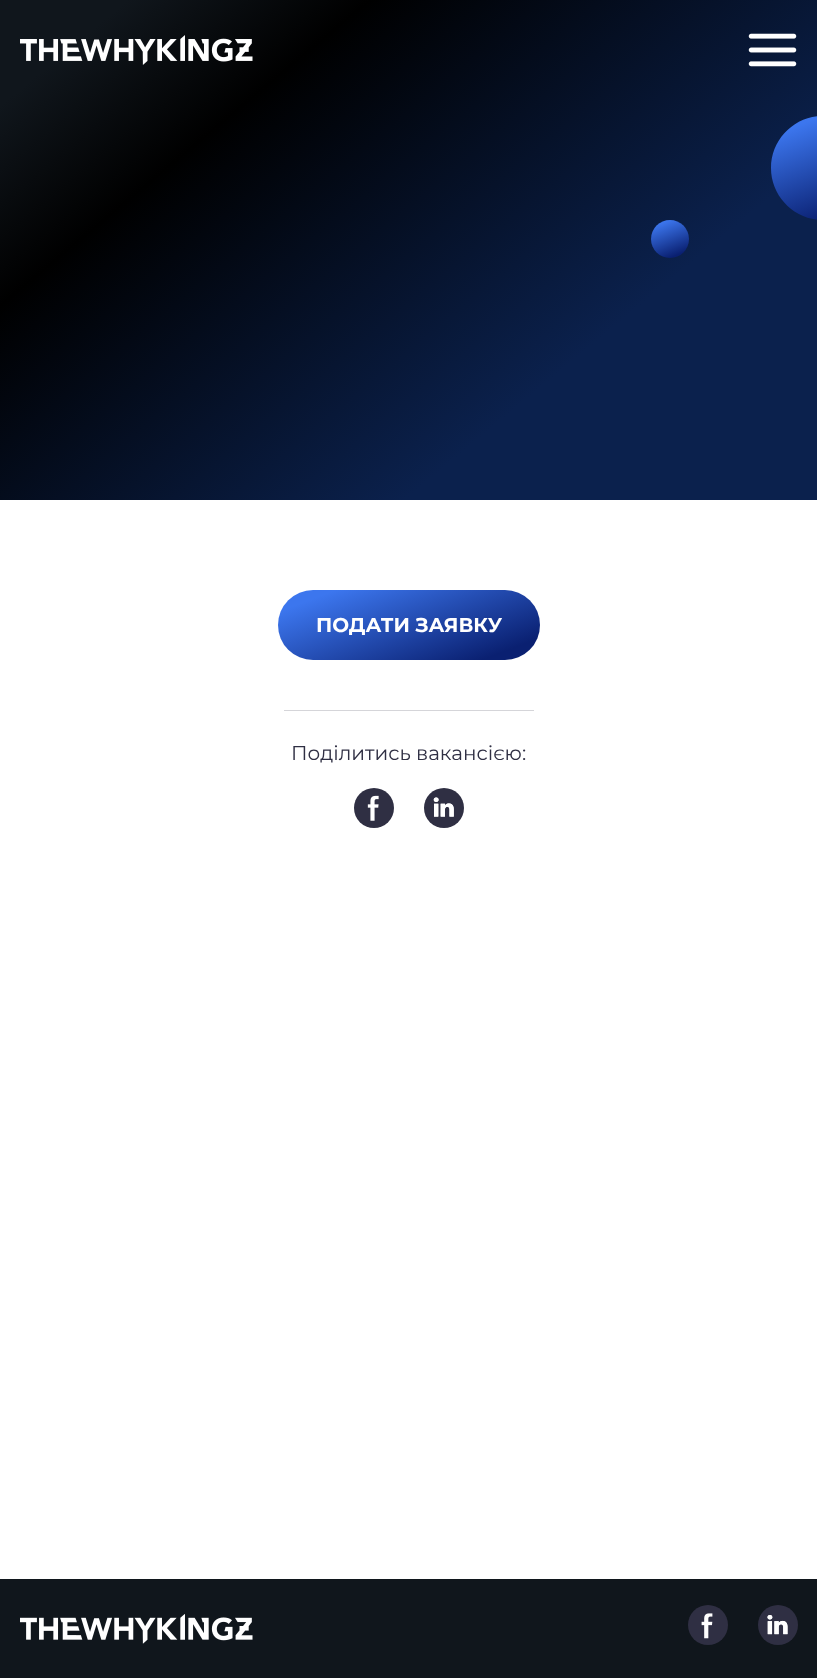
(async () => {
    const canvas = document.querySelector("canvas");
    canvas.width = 817;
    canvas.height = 1678;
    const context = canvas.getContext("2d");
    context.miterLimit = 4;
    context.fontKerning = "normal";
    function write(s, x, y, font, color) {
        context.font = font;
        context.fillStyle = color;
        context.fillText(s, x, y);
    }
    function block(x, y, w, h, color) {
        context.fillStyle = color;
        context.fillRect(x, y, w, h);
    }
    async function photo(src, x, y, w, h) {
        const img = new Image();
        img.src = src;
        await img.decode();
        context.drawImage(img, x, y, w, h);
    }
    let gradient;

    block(0, 0, 817, 1678, "rgb(255, 255, 255)");
    gradient = context.createLinearGradient(120, -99, 697, 599);
    gradient.addColorStop(0.09, "rgb(16, 22, 28)");
    gradient.addColorStop(0.26, "rgb(0, 0, 0)");
    gradient.addColorStop(0.71, "rgb(11, 33, 77)");
    context.fillStyle = gradient;
    context.fillRect(0, 0, 817, 500);
    await photo("media/1.png", 20, 35, 233, 30);
    await photo("media/2.png", 748, 33, 49, 34);
    gradient = context.createLinearGradient(800, 106, 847, 231);
    gradient.addColorStop(0.13, "rgb(60, 118, 238)");
    gradient.addColorStop(0.87, "rgb(10, 32, 113)");
    context.fillStyle = gradient;
    context.beginPath();
    context.moveTo(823, 116);
    context.lineTo(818, 116);
    context.lineTo(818, 220);
    context.lineTo(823, 220);
    context.bezierCurveTo(794.5, 220, 771, 196.5, 771, 168);
    context.bezierCurveTo(771, 139.5, 794.5, 116, 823, 116);
    context.closePath();
    context.fill();
    gradient = context.createLinearGradient(661, 216, 679, 261);
    gradient.addColorStop(0.13, "rgb(60, 118, 238)");
    gradient.addColorStop(0.87, "rgb(10, 32, 113)");
    context.fillStyle = gradient;
    context.beginPath();
    context.arc(670, 239, 19, 0, Math.PI * 2);
    context.fill();
    gradient = context.createLinearGradient(381, 551, 437, 699);
    gradient.addColorStop(0.13, "rgb(60, 118, 238)");
    gradient.addColorStop(0.87, "rgb(10, 32, 113)");
    context.fillStyle = gradient;
    context.beginPath();
    context.roundRect(278, 590, 262, 70, 35);
    context.fill();
    write("ПОДАТИ ЗАЯВКУ", 316, 632, "bold 20px Montserrat", "rgb(255, 255, 255)");
    block(284, 710, 250, 1, "rgb(213, 213, 217)");
    write("Поділитись вакансією:", 291, 760, "20px Montserrat", "rgb(47, 47, 67)");
    context.beginPath();
    context.arc(374, 808, 20, 0, Math.PI * 2);
    context.fill();
    await photo("media/3.png", 367, 795, 12, 26);
    context.beginPath();
    context.arc(444, 808, 20, 0, Math.PI * 2);
    context.fill();
    await photo("media/4.png", 433, 797, 21, 20);
    block(0, 1579, 817, 99, "rgb(16, 22, 28)");
    await photo("media/5.png", 20, 1614, 233, 30);
    context.fillStyle = "rgb(47, 47, 67)";
    context.beginPath();
    context.arc(708, 1625, 20, 0, Math.PI * 2);
    context.fill();
    await photo("media/6.png", 701, 1613, 12, 26);
    context.beginPath();
    context.arc(778, 1625, 20, 0, Math.PI * 2);
    context.fill();
    await photo("media/7.png", 767, 1615, 21, 20);
})();
